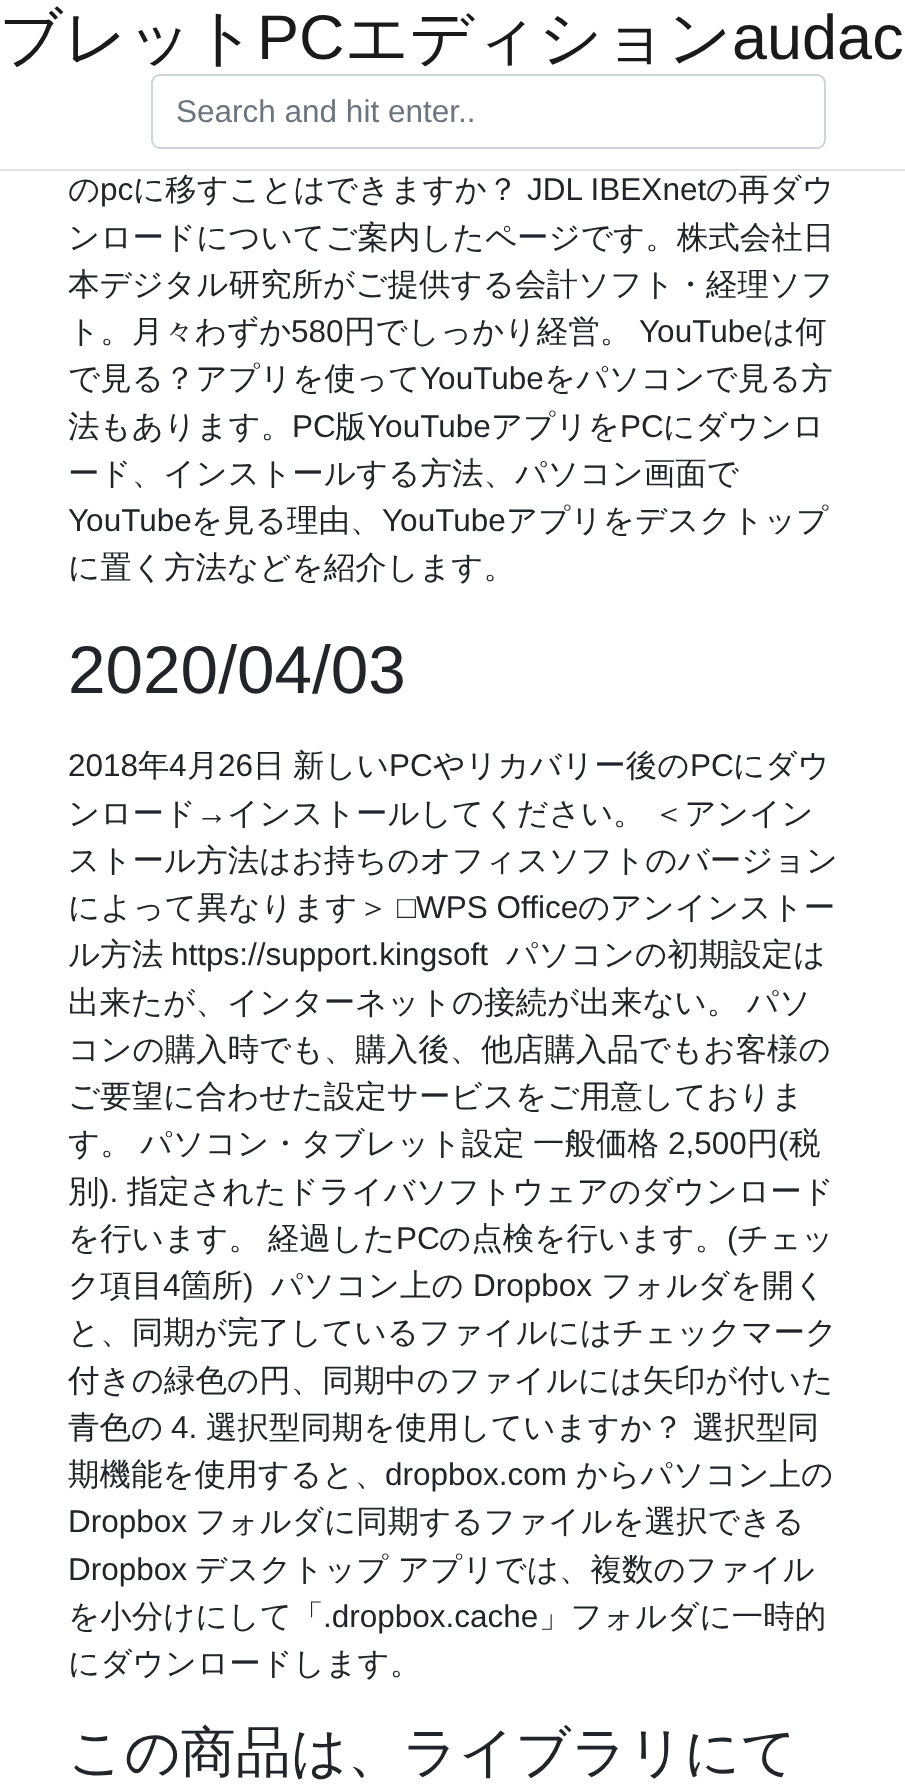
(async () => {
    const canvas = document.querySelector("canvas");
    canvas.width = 905;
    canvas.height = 1786;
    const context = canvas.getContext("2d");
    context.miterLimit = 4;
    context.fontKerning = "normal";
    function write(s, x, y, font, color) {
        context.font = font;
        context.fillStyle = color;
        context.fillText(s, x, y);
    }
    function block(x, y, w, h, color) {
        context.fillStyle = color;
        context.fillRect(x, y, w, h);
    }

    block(0, 0, 905, 1786, "rgb(255, 255, 255)");
    block(0, 169, 905, 2, "rgb(225, 226, 227)");
    write("ブレット", -1, 59, "500 63px WenQuanYi Zen Hei", "rgb(26, 26, 26)");
    write("PC", 257, 59, "63px Liberation Sans", "rgb(26, 26, 26)");
    write("エディション", 345, 59, "500 63px WenQuanYi Zen Hei", "rgb(26, 26, 26)");
    write("audac", 732, 59, "63px Liberation Sans", "rgb(26, 26, 26)");
    context.beginPath();
    context.roundRect(152, 75, 673, 73, 8);
    context.strokeStyle = "rgb(206, 212, 218)";
    context.lineWidth = 2;
    context.stroke();
    write("Search and hit enter..", 176, 122, "31.5px Liberation Sans", "rgb(108, 117, 125)");
    write("の", 68, 200, "500 31.5px WenQuanYi Zen Hei", "rgb(33, 37, 41)");
    write("pc", 100, 200, "31.5px Liberation Sans", "rgb(33, 37, 41)");
    write("に移すことはできますか？", 133, 200, "500 31.5px WenQuanYi Zen Hei", "rgb(33, 37, 41)");
    write("JDL IBEXnet", 527, 200, "31.5px Liberation Sans", "rgb(33, 37, 41)");
    write("の再ダウ", 706, 200, "500 31.5px WenQuanYi Zen Hei", "rgb(33, 37, 41)");
    write("ンロードについてご案内したページです。株式会社日", 68, 248, "500 31.5px WenQuanYi Zen Hei", "rgb(33, 37, 41)");
    write("本デジタル研究所がご提供する会計ソフト・経理ソフ", 68, 295, "500 31.5px WenQuanYi Zen Hei", "rgb(33, 37, 41)");
    write("ト。月々わずか", 68, 342, "500 31.5px WenQuanYi Zen Hei", "rgb(33, 37, 41)");
    write("580", 291, 342, "31.5px Liberation Sans", "rgb(33, 37, 41)");
    write("円でしっかり経営。", 344, 342, "500 31.5px WenQuanYi Zen Hei", "rgb(33, 37, 41)");
    write("YouTube", 639, 342, "31.5px Liberation Sans", "rgb(33, 37, 41)");
    write("は何", 763, 342, "500 31.5px WenQuanYi Zen Hei", "rgb(33, 37, 41)");
    write("で見る？アプリを使って", 68, 389, "500 31.5px WenQuanYi Zen Hei", "rgb(33, 37, 41)");
    write("YouTube", 420, 389, "31.5px Liberation Sans", "rgb(33, 37, 41)");
    write("をパソコンで見る方", 544, 389, "500 31.5px WenQuanYi Zen Hei", "rgb(33, 37, 41)");
    write("法もあります。", 68, 437, "500 31.5px WenQuanYi Zen Hei", "rgb(33, 37, 41)");
    write("PC", 292, 437, "31.5px Liberation Sans", "rgb(33, 37, 41)");
    write("版", 335, 437, "500 31.5px WenQuanYi Zen Hei", "rgb(33, 37, 41)");
    write("YouTube", 367, 437, "31.5px Liberation Sans", "rgb(33, 37, 41)");
    write("アプリを", 491, 437, "500 31.5px WenQuanYi Zen Hei", "rgb(33, 37, 41)");
    write("PC", 620, 437, "31.5px Liberation Sans", "rgb(33, 37, 41)");
    write("にダウンロ", 663, 437, "500 31.5px WenQuanYi Zen Hei", "rgb(33, 37, 41)");
    write("ード、インストールする方法、パソコン画面で", 68, 484, "500 31.5px WenQuanYi Zen Hei", "rgb(33, 37, 41)");
    write("YouTube", 68, 531, "31.5px Liberation Sans", "rgb(33, 37, 41)");
    write("を見る理由、", 191, 531, "500 31.5px WenQuanYi Zen Hei", "rgb(33, 37, 41)");
    write("YouTube", 382, 531, "31.5px Liberation Sans", "rgb(33, 37, 41)");
    write("アプリをデスクトップ", 506, 531, "500 31.5px WenQuanYi Zen Hei", "rgb(33, 37, 41)");
    write("に置く方法などを紹介します。", 68, 578, "500 31.5px WenQuanYi Zen Hei", "rgb(33, 37, 41)");
    write("2020/04/03", 68, 693, "67.5px Liberation Sans", "rgb(33, 37, 41)");
    write("2018", 68, 776, "31.5px Liberation Sans", "rgb(33, 37, 41)");
    write("年", 138, 776, "500 31.5px WenQuanYi Zen Hei", "rgb(33, 37, 41)");
    write("4", 169, 776, "31.5px Liberation Sans", "rgb(33, 37, 41)");
    write("月", 187, 776, "500 31.5px WenQuanYi Zen Hei", "rgb(33, 37, 41)");
    write("26", 218, 776, "31.5px Liberation Sans", "rgb(33, 37, 41)");
    write("日", 253, 776, "500 31.5px WenQuanYi Zen Hei", "rgb(33, 37, 41)");
    write("新しい", 293, 776, "500 31.5px WenQuanYi Zen Hei", "rgb(33, 37, 41)");
    write("PC", 389, 776, "31.5px Liberation Sans", "rgb(33, 37, 41)");
    write("やリカバリー後の", 433, 776, "500 31.5px WenQuanYi Zen Hei", "rgb(33, 37, 41)");
    write("PC", 690, 776, "31.5px Liberation Sans", "rgb(33, 37, 41)");
    write("にダウ", 733, 776, "500 31.5px WenQuanYi Zen Hei", "rgb(33, 37, 41)");
    write("ンロード", 68, 824, "500 31.5px WenQuanYi Zen Hei", "rgb(33, 37, 41)");
    write("→", 196, 824, "31.5px Liberation Sans", "rgb(33, 37, 41)");
    context.wordSpacing = "-1px";
    write("インストールしてください。 ＜アンイン", 227, 824, "500 31.5px WenQuanYi Zen Hei", "rgb(33, 37, 41)");
    context.wordSpacing = "0px";
    write("ストール方法はお持ちのオフィスソフトのバージョン", 68, 871, "500 31.5px WenQuanYi Zen Hei", "rgb(33, 37, 41)");
    write("によって異なります＞", 68, 918, "500 31.5px WenQuanYi Zen Hei", "rgb(33, 37, 41)");
    write("□WPS Office", 397, 918, "31.5px Liberation Sans", "rgb(33, 37, 41)");
    write("のアンインストー", 578, 918, "500 31.5px WenQuanYi Zen Hei", "rgb(33, 37, 41)");
    write("ル方法", 68, 965, "500 31.5px WenQuanYi Zen Hei", "rgb(33, 37, 41)");
    write("https://support.kingsoft", 171, 965, "31.5px Liberation Sans", "rgb(33, 37, 41)");
    write("パソコンの初期設定は", 506, 965, "500 31.5px WenQuanYi Zen Hei", "rgb(33, 37, 41)");
    context.wordSpacing = "-1px";
    write("出来たが、インターネットの接続が出来ない。 パソ", 68, 1013, "500 31.5px WenQuanYi Zen Hei", "rgb(33, 37, 41)");
    context.wordSpacing = "0px";
    write("コンの購入時でも、購入後、他店購入品でもお客様の", 68, 1060, "500 31.5px WenQuanYi Zen Hei", "rgb(33, 37, 41)");
    write("ご要望に合わせた設定サービスをご用意しておりま", 68, 1107, "500 31.5px WenQuanYi Zen Hei", "rgb(33, 37, 41)");
    context.wordSpacing = "-1px";
    write("す。 パソコン・タブレット設定", 68, 1154, "500 31.5px WenQuanYi Zen Hei", "rgb(33, 37, 41)");
    context.wordSpacing = "0px";
    write("一般価格", 533, 1154, "500 31.5px WenQuanYi Zen Hei", "rgb(33, 37, 41)");
    write("2,500", 668, 1154, "31.5px Liberation Sans", "rgb(33, 37, 41)");
    write("円", 747, 1154, "500 31.5px WenQuanYi Zen Hei", "rgb(33, 37, 41)");
    write("(", 778, 1154, "31.5px Liberation Sans", "rgb(33, 37, 41)");
    write("税", 789, 1154, "500 31.5px WenQuanYi Zen Hei", "rgb(33, 37, 41)");
    write("別", 68, 1202, "500 31.5px WenQuanYi Zen Hei", "rgb(33, 37, 41)");
    write(").", 99, 1202, "31.5px Liberation Sans", "rgb(33, 37, 41)");
    write("指定されたドライバソフトウェアのダウンロード", 127, 1202, "500 31.5px WenQuanYi Zen Hei", "rgb(33, 37, 41)");
    write("を行います。", 68, 1249, "500 31.5px WenQuanYi Zen Hei", "rgb(33, 37, 41)");
    write("経過した", 268, 1249, "500 31.5px WenQuanYi Zen Hei", "rgb(33, 37, 41)");
    write("PC", 396, 1249, "31.5px Liberation Sans", "rgb(33, 37, 41)");
    write("の点検を行います。", 439, 1249, "500 31.5px WenQuanYi Zen Hei", "rgb(33, 37, 41)");
    write("(", 727, 1249, "31.5px Liberation Sans", "rgb(33, 37, 41)");
    write("チェッ", 737, 1249, "500 31.5px WenQuanYi Zen Hei", "rgb(33, 37, 41)");
    write("ク項目", 68, 1296, "500 31.5px WenQuanYi Zen Hei", "rgb(33, 37, 41)");
    write("4", 163, 1296, "31.5px Liberation Sans", "rgb(33, 37, 41)");
    write("箇所", 180, 1296, "500 31.5px WenQuanYi Zen Hei", "rgb(33, 37, 41)");
    write(")", 243, 1296, "31.5px Liberation Sans", "rgb(33, 37, 41)");
    write("パソコン上の", 271, 1296, "500 31.5px WenQuanYi Zen Hei", "rgb(33, 37, 41)");
    write("Dropbox", 473, 1296, "31.5px Liberation Sans", "rgb(33, 37, 41)");
    write("フォルダを開く", 601, 1296, "500 31.5px WenQuanYi Zen Hei", "rgb(33, 37, 41)");
    write("と、同期が完了しているファイルにはチェックマーク", 68, 1343, "500 31.5px WenQuanYi Zen Hei", "rgb(33, 37, 41)");
    write("付きの緑色の円、同期中のファイルには矢印が付いた", 68, 1391, "500 31.5px WenQuanYi Zen Hei", "rgb(33, 37, 41)");
    write("青色の", 68, 1438, "500 31.5px WenQuanYi Zen Hei", "rgb(33, 37, 41)");
    write("4.", 171, 1438, "31.5px Liberation Sans", "rgb(33, 37, 41)");
    write("選択型同期を使用していますか？ 選択型同", 206, 1438, "500 31.5px WenQuanYi Zen Hei", "rgb(33, 37, 41)");
    write("期機能を使用すると、", 68, 1485, "500 31.5px WenQuanYi Zen Hei", "rgb(33, 37, 41)");
    write("dropbox.com", 385, 1485, "31.5px Liberation Sans", "rgb(33, 37, 41)");
    write("からパソコン上の", 576, 1485, "500 31.5px WenQuanYi Zen Hei", "rgb(33, 37, 41)");
    write("Dropbox", 68, 1532, "31.5px Liberation Sans", "rgb(33, 37, 41)");
    write("フォルダに同期するファイルを選択できる", 195, 1532, "500 31.5px WenQuanYi Zen Hei", "rgb(33, 37, 41)");
    write("Dropbox", 68, 1580, "31.5px Liberation Sans", "rgb(33, 37, 41)");
    write("デスクトップ アプリでは、複数のファイル", 195, 1580, "500 31.5px WenQuanYi Zen Hei", "rgb(33, 37, 41)");
    write("を小分けにして「", 68, 1627, "500 31.5px WenQuanYi Zen Hei", "rgb(33, 37, 41)");
    write(".dropbox.cache", 323, 1627, "31.5px Liberation Sans", "rgb(33, 37, 41)");
    write("」フォルダに一時的", 539, 1627, "500 31.5px WenQuanYi Zen Hei", "rgb(33, 37, 41)");
    write("にダウンロードします。", 68, 1674, "500 31.5px WenQuanYi Zen Hei", "rgb(33, 37, 41)");
    write("この商品は、ライブラリにて", 68, 1771, "500 55.1px WenQuanYi Zen Hei", "rgb(33, 37, 41)");
})();
